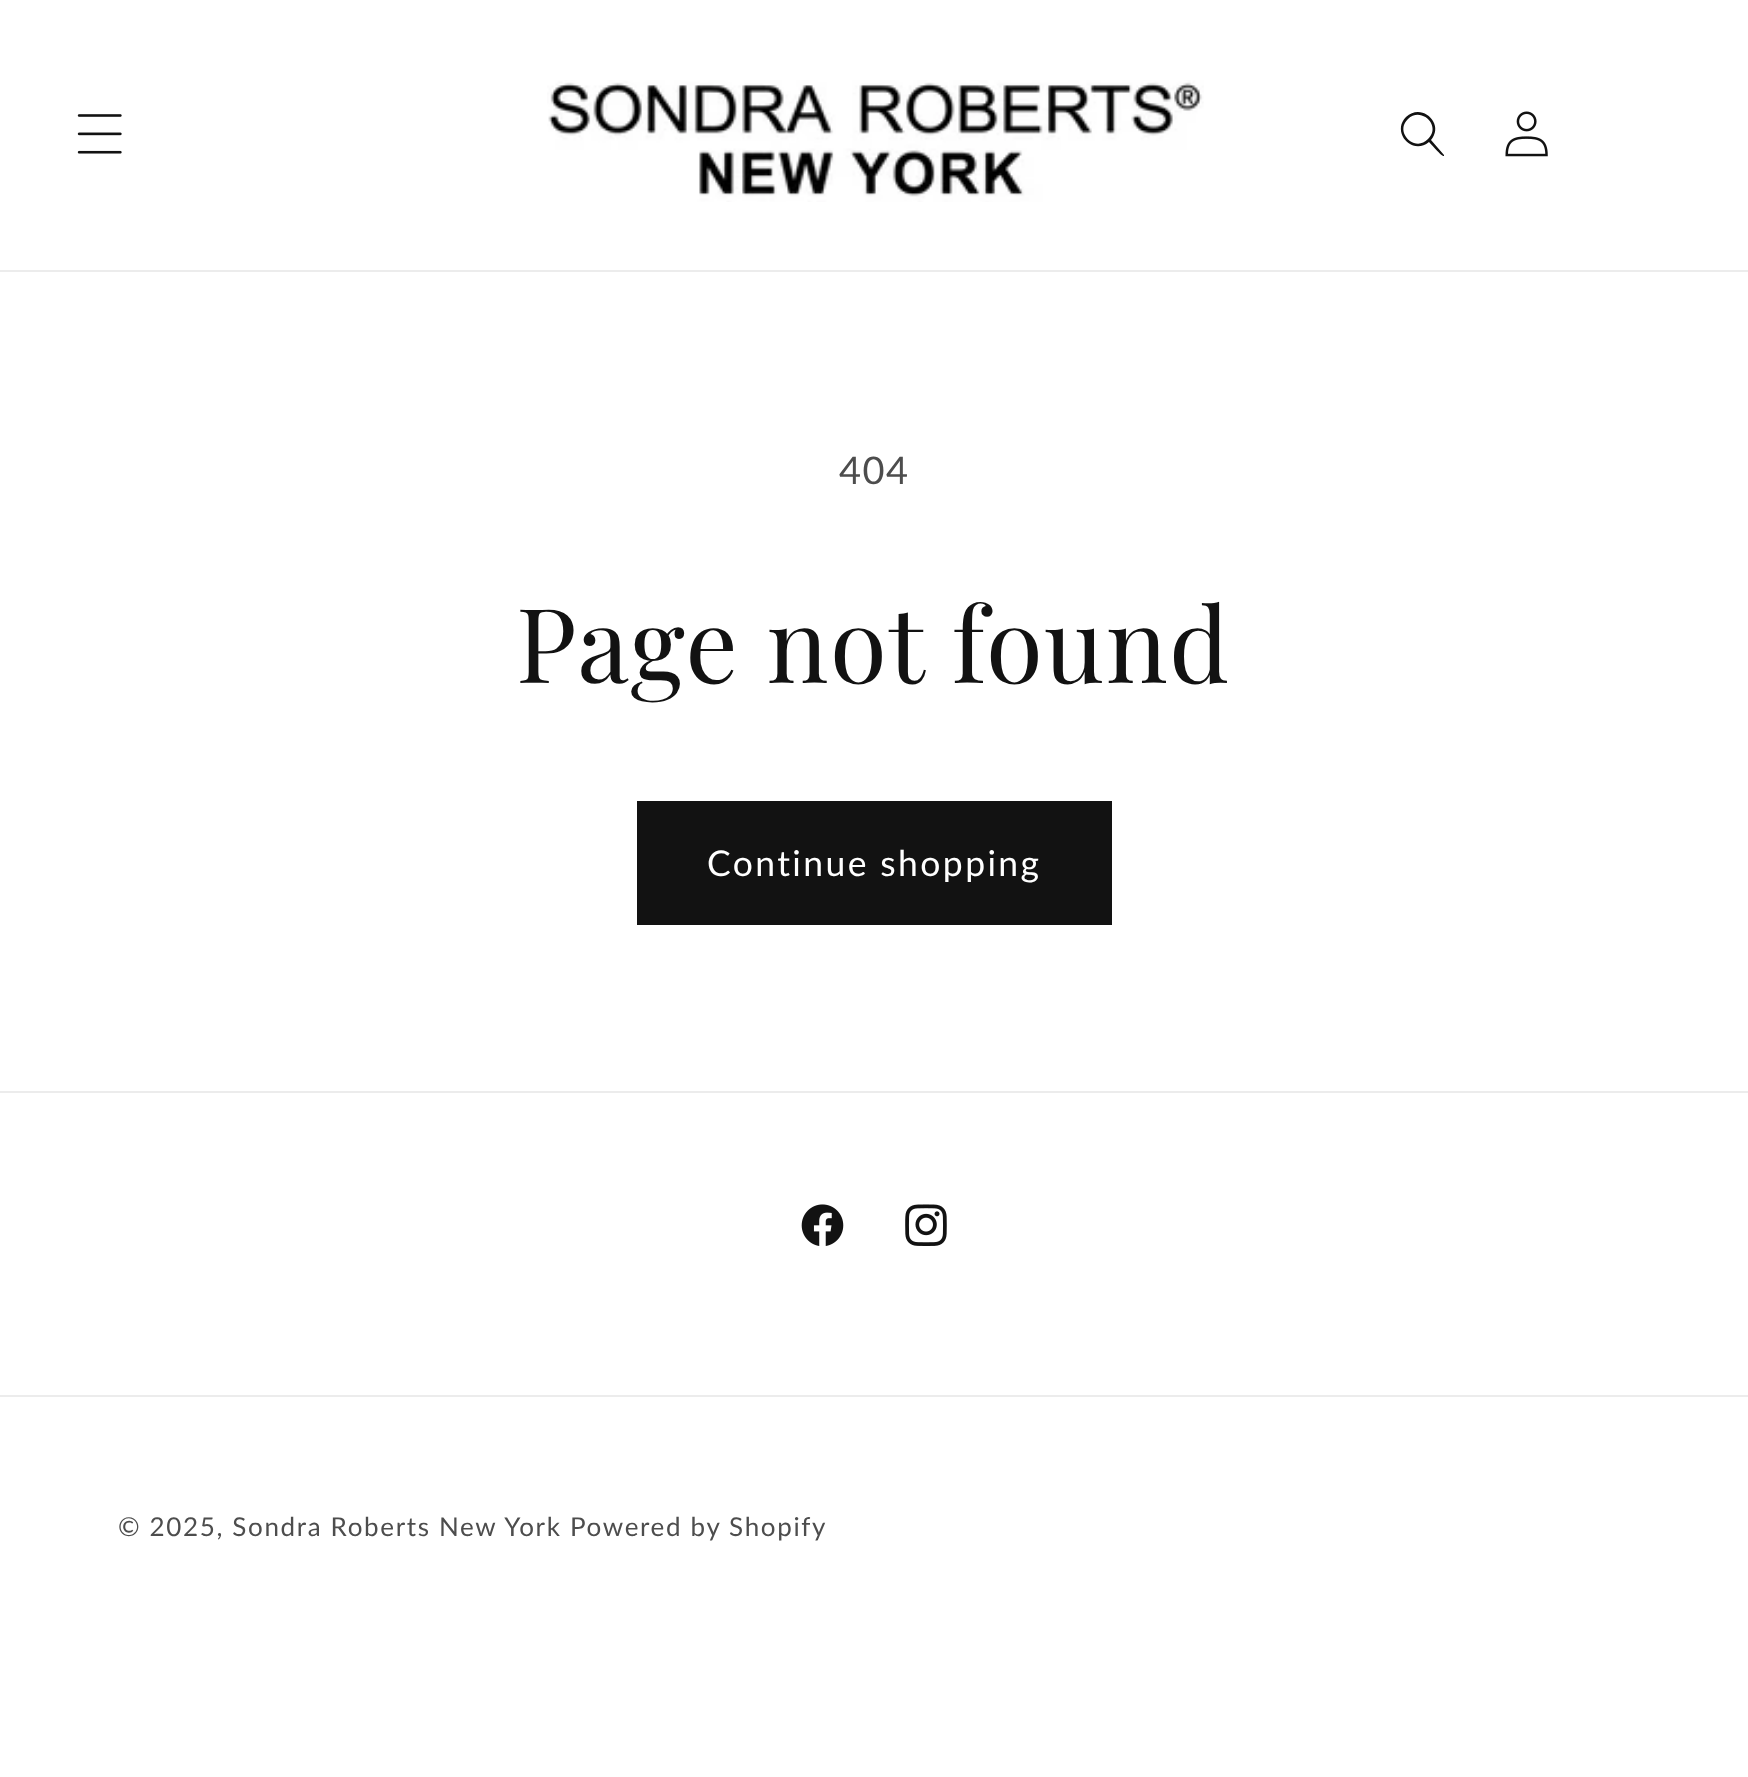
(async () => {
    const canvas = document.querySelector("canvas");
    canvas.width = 1748;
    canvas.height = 1777;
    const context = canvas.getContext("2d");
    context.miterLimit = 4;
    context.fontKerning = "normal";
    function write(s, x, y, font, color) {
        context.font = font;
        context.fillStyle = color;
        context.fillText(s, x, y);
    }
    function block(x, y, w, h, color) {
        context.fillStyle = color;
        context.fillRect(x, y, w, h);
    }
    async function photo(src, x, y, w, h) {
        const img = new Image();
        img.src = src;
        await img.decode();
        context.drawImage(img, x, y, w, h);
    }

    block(0, 0, 1748, 1777, "rgb(255, 255, 255)");
    block(0, 270, 1748, 2, "rgb(236, 236, 236)");
    await photo("media/1.png", 77, 114, 45, 40);
    await photo("media/2.png", 547, 80, 657, 122);
    context.fillStyle = "rgb(18, 18, 18)";
    context.beginPath();
    context.moveTo(1428, 139);
    context.bezierCurveTo(1415, 153, 1394, 132, 1408, 119);
    context.bezierCurveTo(1421, 106, 1442, 126, 1428, 139);
    context.closePath();
    context.moveTo(1429, 142);
    context.bezierCurveTo(1412, 156, 1391, 132, 1406, 117);
    context.bezierCurveTo(1422, 102, 1445, 124, 1431, 140);
    context.lineTo(1444, 155);
    context.lineTo(1444, 156);
    context.bezierCurveTo(1442, 157, 1431, 144, 1429, 142);
    context.closePath();
    context.fill("evenodd");
    await photo("media/3.png", 1505, 111, 43, 46);
    context.letterSpacing = "1.5px";
    write("404", 839, 484, "38px Lato", "rgb(77, 77, 77)");
    write("Page not found", 516, 683, "103.5px Playfair Display", "rgb(18, 18, 18)");
    block(637, 801, 475, 124, "rgb(18, 18, 18)");
    context.letterSpacing = "2.4px";
    write("Continue shopping", 707, 876, "35.5px Lato", "rgb(255, 255, 255)");
    block(0, 1091, 1748, 2, "rgb(236, 236, 236)");
    await photo("media/4.png", 801, 1204, 43, 42);
    await photo("media/5.png", 905, 1204, 42, 42);
    block(0, 1395, 1748, 2, "rgb(236, 236, 236)");
    context.letterSpacing = "1.65px";
    write("© 2025, Sondra Roberts New York", 118, 1536, "26px Lato", "rgb(77, 77, 77)");
    write("Powered by Shopify", 570, 1536, "26px Lato", "rgb(77, 77, 77)");
})();
